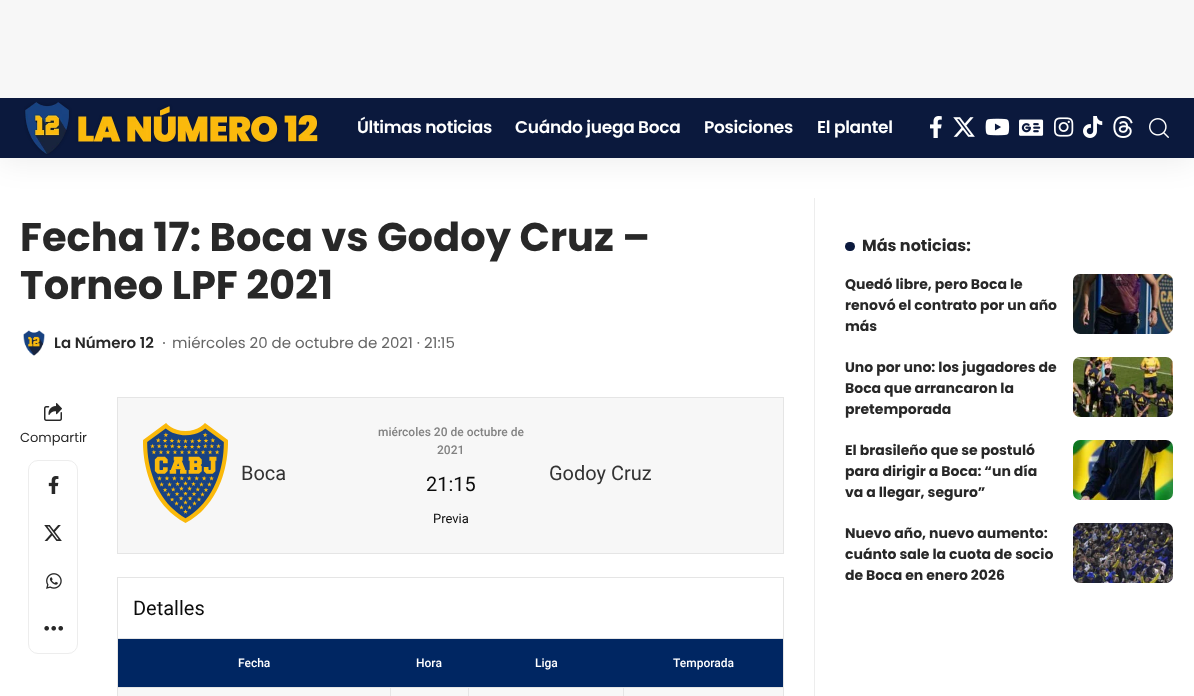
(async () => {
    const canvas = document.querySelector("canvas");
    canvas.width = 1194;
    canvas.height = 696;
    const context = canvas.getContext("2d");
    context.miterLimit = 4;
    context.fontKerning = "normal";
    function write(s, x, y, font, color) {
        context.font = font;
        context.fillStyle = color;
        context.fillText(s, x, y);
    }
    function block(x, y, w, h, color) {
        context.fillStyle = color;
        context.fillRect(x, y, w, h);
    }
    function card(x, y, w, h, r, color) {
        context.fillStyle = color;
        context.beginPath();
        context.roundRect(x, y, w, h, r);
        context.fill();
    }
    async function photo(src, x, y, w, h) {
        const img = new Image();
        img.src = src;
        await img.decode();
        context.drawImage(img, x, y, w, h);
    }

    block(0, 0, 1194, 696, "rgb(255, 255, 255)");
    block(0, 0, 1194, 98, "rgb(247, 247, 247)");
    block(814, 198, 1, 498, "rgb(237, 237, 237)");
    context.save();
    context.beginPath();
    context.rect(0, 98, 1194, 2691);
    context.clip();
    context.fillStyle = "rgba(0, 0, 0, 0.07)";
    context.filter = "blur(15px)";
    context.beginPath();
    context.rect(0, 102, 1194, 60);
    context.fill();
    context.filter = "none";
    context.restore();
    block(0, 98, 1194, 60, "rgb(11, 25, 61)");
    await photo("media/1.png", 24, 102, 294, 53);
    context.letterSpacing = "-0.3px";
    write("Últimas noticias", 357, 133, "600 17px Poppins", "rgb(255, 255, 255)");
    write("Cuándo juega Boca", 515, 133, "600 17px Poppins", "rgb(255, 255, 255)");
    write("Posiciones", 704, 133, "600 17px Poppins", "rgb(255, 255, 255)");
    write("El plantel", 817, 133, "600 17px Poppins", "rgb(255, 255, 255)");
    await photo("media/2.png", 930, 116, 12, 22);
    await photo("media/3.png", 953, 117, 22, 20);
    await photo("media/4.png", 985, 118, 25, 18);
    await photo("media/5.png", 1019, 119, 25, 17);
    await photo("media/6.png", 1054, 117, 20, 20);
    await photo("media/7.png", 1083, 116, 20, 22);
    await photo("media/8.png", 1113, 116, 20, 22);
    await photo("media/9.png", 1149, 118, 20, 20);
    context.letterSpacing = "0px";
    write("Fecha 17: Boca vs Godoy Cruz –", 20, 251, "bold 40px Poppins", "rgb(40, 40, 40)");
    write("Torneo LPF 2021", 20, 299, "bold 40px Poppins", "rgb(40, 40, 40)");
    await photo("media/10.png", 23, 330, 22, 26);
    write("La Número 12", 54, 348, "600 15px Poppins", "rgb(40, 40, 40)");
    context.fillStyle = "rgb(102, 102, 102)";
    context.beginPath();
    context.arc(164, 343, 1, 0, Math.PI * 2);
    context.fill();
    write("miércoles 20 de octubre de 2021 · 21:15", 172, 348, "15px Poppins", "rgb(102, 102, 102)");
    await photo("media/11.png", 44, 403, 18, 18);
    write("Compartir", 20, 442, "13px Poppins", "rgb(40, 40, 40)");
    context.beginPath();
    context.roundRect(28.5, 460.5, 49, 193, 9.5);
    context.strokeStyle = "rgb(237, 237, 237)";
    context.stroke();
    await photo("media/12.png", 48, 476, 11, 18);
    await photo("media/13.png", 44, 525, 18, 16);
    await photo("media/14.png", 46, 573, 16, 16);
    await photo("media/15.png", 44, 626, 20, 5);
    block(117, 397, 667, 1, "rgb(229, 229, 229)");
    block(783, 397, 1, 157, "rgb(229, 229, 229)");
    block(117, 553, 667, 1, "rgb(229, 229, 229)");
    block(117, 397, 1, 157, "rgb(229, 229, 229)");
    block(118, 398, 665, 155, "rgb(247, 247, 247)");
    write("miércoles 20 de octubre de", 378, 436, "500 12px Roboto", "rgb(130, 130, 130)");
    write("2021", 437, 454, "500 12px Roboto", "rgb(130, 130, 130)");
    await photo("media/16.png", 143, 423, 85, 100);
    write("Boca", 241, 480, "20px Roboto", "rgb(51, 51, 51)");
    write("21:15", 426, 491, "20px Roboto", "rgb(12, 12, 12)");
    write("Godoy Cruz", 549, 480, "20px Roboto", "rgb(51, 51, 51)");
    write("Previa", 433, 523, "13px Roboto", "rgb(12, 12, 12)");
    block(117, 577, 667, 1, "rgb(229, 229, 229)");
    block(783, 577, 1, 61, "rgb(229, 229, 229)");
    block(117, 577, 1, 61, "rgb(229, 229, 229)");
    write("Detalles", 133, 615, "20px Roboto", "rgb(12, 12, 12)");
    block(117, 638, 667, 1, "rgb(229, 229, 229)");
    block(783, 638, 1, 58, "rgb(229, 229, 229)");
    block(117, 638, 1, 58, "rgb(229, 229, 229)");
    block(118, 639, 665, 48, "rgb(0, 38, 98)");
    write("Fecha", 238, 667, "500 12px Roboto", "rgb(255, 255, 255)");
    write("Hora", 416, 667, "500 12px Roboto", "rgb(255, 255, 255)");
    write("Liga", 535, 667, "500 12px Roboto", "rgb(255, 255, 255)");
    write("Temporada", 673, 667, "500 12px Roboto", "rgb(255, 255, 255)");
    block(118, 688, 665, 8, "rgb(247, 247, 247)");
    block(623, 687, 161, 1, "rgb(229, 229, 229)");
    block(623, 687, 1, 9, "rgb(229, 229, 229)");
    block(468, 687, 156, 1, "rgb(229, 229, 229)");
    block(468, 687, 1, 9, "rgb(229, 229, 229)");
    block(390, 687, 79, 1, "rgb(229, 229, 229)");
    block(390, 687, 1, 9, "rgb(229, 229, 229)");
    block(117, 687, 274, 1, "rgb(229, 229, 229)");
    card(845, 242, 10, 9, 4.5, "rgb(11, 25, 61)");
    write("Más noticias:", 862, 251, "bold 16px Poppins", "rgb(40, 40, 40)");
    write("Quedó libre, pero Boca le", 845, 289, "bold 14px Poppins", "rgb(40, 40, 40)");
    write("renovó el contrato por un año", 845, 310, "bold 14px Poppins", "rgb(40, 40, 40)");
    write("más", 845, 331, "bold 14px Poppins", "rgb(40, 40, 40)");
    await photo("media/17.png", 1073, 274, 100, 60);
    write("Uno por uno: los jugadores de", 845, 372, "bold 14px Poppins", "rgb(40, 40, 40)");
    write("Boca que arrancaron la", 845, 393, "bold 14px Poppins", "rgb(40, 40, 40)");
    write("pretemporada", 845, 414, "bold 14px Poppins", "rgb(40, 40, 40)");
    await photo("media/18.png", 1073, 357, 100, 60);
    write("El brasileño que se postuló", 845, 455, "bold 14px Poppins", "rgb(40, 40, 40)");
    write("para dirigir a Boca: “un día", 845, 476, "bold 14px Poppins", "rgb(40, 40, 40)");
    write("va a llegar, seguro”", 845, 497, "bold 14px Poppins", "rgb(40, 40, 40)");
    await photo("media/19.png", 1073, 440, 100, 60);
    write("Nuevo año, nuevo aumento:", 845, 538, "bold 14px Poppins", "rgb(40, 40, 40)");
    write("cuánto sale la cuota de socio", 845, 559, "bold 14px Poppins", "rgb(40, 40, 40)");
    write("de Boca en enero 2026", 845, 580, "bold 14px Poppins", "rgb(40, 40, 40)");
    await photo("media/20.png", 1073, 523, 100, 60);
})();
